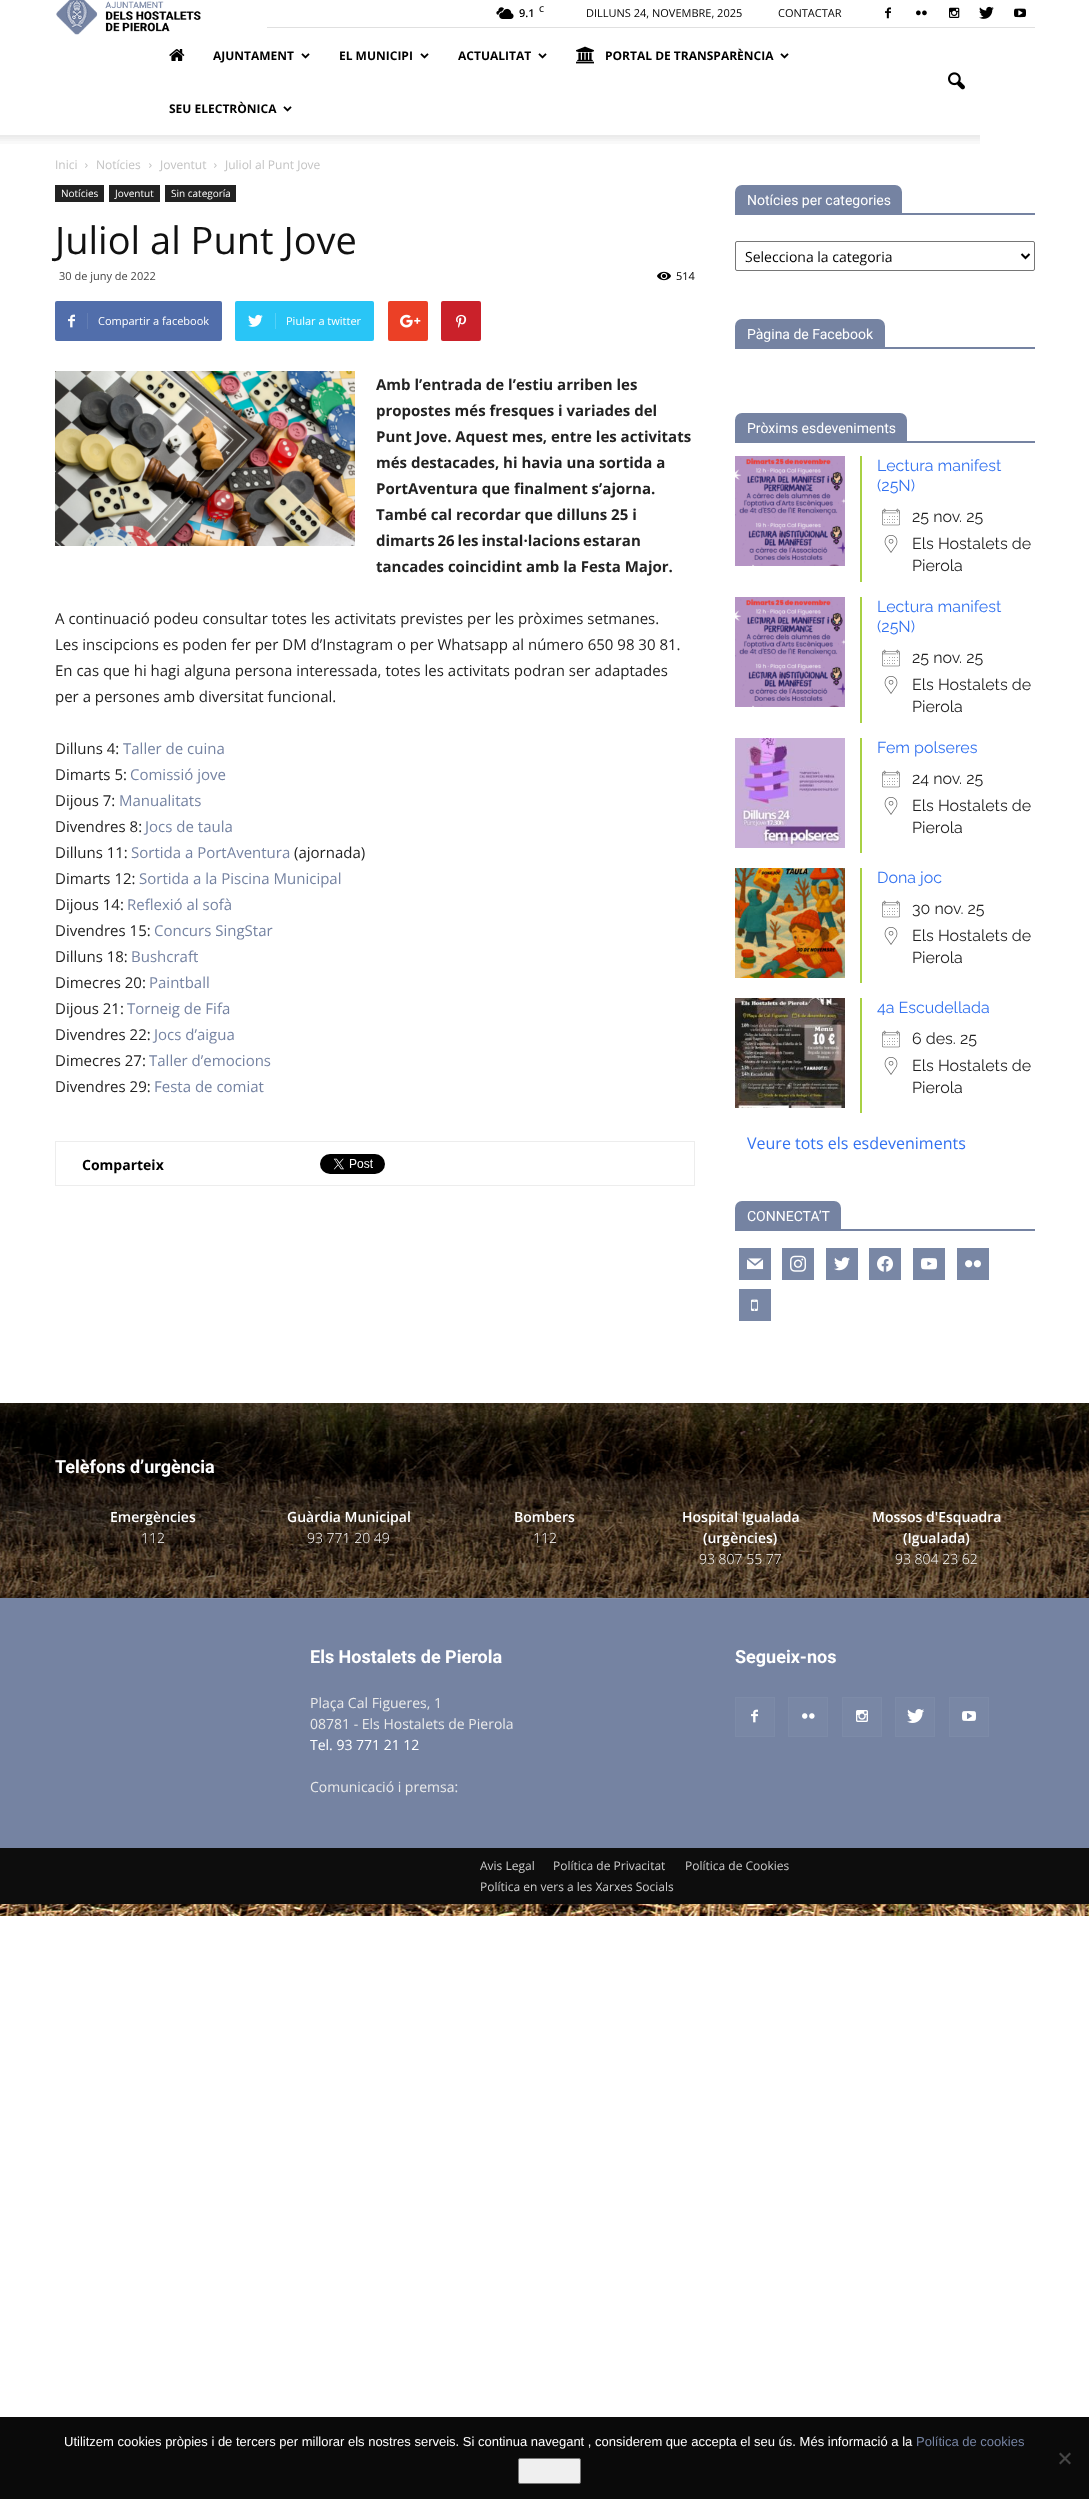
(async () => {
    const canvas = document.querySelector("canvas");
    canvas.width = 1089;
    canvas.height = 2499;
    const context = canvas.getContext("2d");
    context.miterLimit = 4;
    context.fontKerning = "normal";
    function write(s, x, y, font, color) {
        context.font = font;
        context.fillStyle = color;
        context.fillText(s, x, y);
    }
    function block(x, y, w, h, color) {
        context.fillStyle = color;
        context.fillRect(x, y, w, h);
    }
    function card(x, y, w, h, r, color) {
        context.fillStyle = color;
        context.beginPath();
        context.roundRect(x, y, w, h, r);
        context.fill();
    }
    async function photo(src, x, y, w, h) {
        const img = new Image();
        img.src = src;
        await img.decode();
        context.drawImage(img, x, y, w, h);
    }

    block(0, 0, 1089, 2499, "rgb(255, 255, 255)");
    await photo("media/1.png", 0, 1403, 1089, 513);
    await photo("media/2.png", 56, 0, 145, 35);
    block(267, 27, 768, 1, "rgb(224, 224, 224)");
    await photo("media/3.png", 496, 7, 18, 12);
    write("9.1", 519, 17, "600 11px Open Sans", "rgb(0, 0, 0)");
    write("C", 539, 12, "600 8px Open Sans", "rgb(0, 0, 0)");
    write("DILLUNS 24, NOVEMBRE, 2025", 586, 17, "11px Open Sans", "rgb(0, 0, 0)");
    write("CONTACTAR", 778, 17, "11px Open Sans", "rgb(0, 0, 0)");
    await photo("media/4.png", 885, 7, 6, 12);
    await photo("media/5.png", 916, 10, 11, 6);
    await photo("media/6.png", 949, 7, 11, 11);
    await photo("media/7.png", 979, 6, 15, 13);
    await photo("media/8.png", 1014, 8, 12, 10);
    await photo("media/9.png", 169, 49, 16, 12);
    write("AJUNTAMENT", 213, 60, "bold 12px Open Sans", "rgb(0, 0, 0)");
    await photo("media/10.png", 301, 53, 9, 6);
    write("EL MUNICIPI", 339, 60, "bold 12px Open Sans", "rgb(0, 0, 0)");
    await photo("media/10.png", 420, 53, 9, 6);
    write("ACTUALITAT", 458, 60, "bold 12px Open Sans", "rgb(0, 0, 0)");
    await photo("media/10.png", 538, 53, 9, 6);
    await photo("media/11.png", 576, 46, 18, 18);
    write("PORTAL DE TRANSPARÈNCIA", 605, 60, "bold 12px Open Sans", "rgb(0, 0, 0)");
    await photo("media/10.png", 780, 53, 9, 6);
    write("SEU ELECTRÒNICA", 169, 113, "bold 12px Open Sans", "rgb(0, 0, 0)");
    await photo("media/10.png", 283, 106, 9, 6);
    await photo("media/12.png", 948, 72, 17, 18);
    await photo("media/13.png", 0, 135, 980, 9);
    write("Inici", 55, 169, "12px Open Sans", "rgb(195, 195, 195)");
    await photo("media/14.png", 85, 163, 3, 5);
    write("Notícies", 96, 169, "12px Open Sans", "rgb(195, 195, 195)");
    await photo("media/14.png", 149, 163, 3, 5);
    write("Joventut", 160, 169, "12px Open Sans", "rgb(195, 195, 195)");
    await photo("media/14.png", 214, 163, 3, 5);
    write("Juliol al Punt Jove", 225, 169, "12px Open Sans", "rgb(195, 195, 195)");
    block(55, 185, 49, 17, "rgb(34, 34, 34)");
    write("Notícies", 61, 197, "10px Open Sans", "rgb(255, 255, 255)");
    block(109, 185, 51, 17, "rgb(34, 34, 34)");
    write("Joventut", 115, 197, "10px Open Sans", "rgb(255, 255, 255)");
    block(165, 185, 71, 17, "rgb(34, 34, 34)");
    write("Sin categoría", 171, 197, "10px Open Sans", "rgb(255, 255, 255)");
    write("Juliol al Punt Jove", 55, 254, "38px Open Sans", "rgb(17, 17, 17)");
    write("30 de juny de 2022", 59, 280, "11px Open Sans", "rgb(68, 68, 68)");
    await photo("media/15.png", 657, 271, 14, 10);
    write("514", 676, 280, "11px Open Sans", "rgb(0, 0, 0)");
    card(55, 301, 167, 40, 2, "rgb(81, 110, 171)");
    await photo("media/16.png", 68, 314, 7, 14);
    block(87, 313, 1, 16, "rgb(98, 125, 179)");
    write("Compartir a facebook", 98, 325, "11px Open Sans", "rgb(255, 255, 255)");
    card(235, 301, 139, 40, 2, "rgb(41, 197, 246)");
    await photo("media/17.png", 248, 314, 15, 13);
    block(275, 313, 1, 16, "rgb(84, 209, 248)");
    write("Piular a twitter", 286, 325, "11px Open Sans", "rgb(255, 255, 255)");
    card(388, 301, 40, 40, 2, "rgb(235, 64, 38)");
    await photo("media/18.png", 400, 314, 21, 14);
    card(441, 301, 40, 40, 2, "rgb(202, 33, 42)");
    await photo("media/19.png", 456, 314, 11, 14);
    await photo("media/20.png", 55, 371, 300, 175);
    write("Amb l’entrada de l’estiu arriben les", 376, 390, "bold 15px Open Sans", "rgb(34, 34, 34)");
    write("propostes més fresques i variades del", 376, 416, "bold 15px Open Sans", "rgb(34, 34, 34)");
    write("Punt Jove. Aquest mes, entre les activitats", 376, 442, "bold 15px Open Sans", "rgb(34, 34, 34)");
    write("més destacades, hi havia una sortida a", 376, 468, "bold 15px Open Sans", "rgb(34, 34, 34)");
    write("PortAventura que finalment s’ajorna.", 376, 494, "bold 15px Open Sans", "rgb(34, 34, 34)");
    write("També cal recordar que dilluns 25 i", 376, 520, "bold 15px Open Sans", "rgb(34, 34, 34)");
    context.wordSpacing = "-1px";
    write("dimarts 26 les instal·lacions estaran", 376, 546, "bold 15px Open Sans", "rgb(34, 34, 34)");
    context.wordSpacing = "0px";
    write("tancades coincidint amb la Festa Major.", 376, 572, "bold 15px Open Sans", "rgb(34, 34, 34)");
    write("A continuació podeu consultar totes les activitats previstes per les pròximes setmanes.", 55, 624, "15px Open Sans", "rgb(34, 34, 34)");
    write("Les inscipcions es poden fer per DM d’Instagram o per Whatsapp al número 650 98 30 81.", 55, 650, "15px Open Sans", "rgb(34, 34, 34)");
    write("En cas que hi hagi alguna persona interessada, totes les activitats podran ser adaptades", 55, 676, "15px Open Sans", "rgb(34, 34, 34)");
    write("per a persones amb diversitat funcional.", 55, 702, "15px Open Sans", "rgb(34, 34, 34)");
    write("Dilluns 4:", 55, 754, "15px Open Sans", "rgb(34, 34, 34)");
    write("Taller de cuina", 123, 754, "15px Open Sans", "rgb(117, 131, 162)");
    write("Dimarts 5:", 55, 780, "15px Open Sans", "rgb(34, 34, 34)");
    write("Comissió jove", 130, 780, "15px Open Sans", "rgb(117, 131, 162)");
    write("Dijous 7:", 55, 806, "15px Open Sans", "rgb(34, 34, 34)");
    write("Manualitats", 119, 806, "15px Open Sans", "rgb(117, 131, 162)");
    write("Divendres 8:", 55, 832, "15px Open Sans", "rgb(34, 34, 34)");
    write("Jocs de taula", 145, 832, "15px Open Sans", "rgb(117, 131, 162)");
    write("Dilluns 11:", 55, 858, "15px Open Sans", "rgb(34, 34, 34)");
    write("Sortida a PortAventura", 131, 858, "15px Open Sans", "rgb(117, 131, 162)");
    write("(ajornada)", 294, 858, "15px Open Sans", "rgb(34, 34, 34)");
    write("Dimarts 12:", 55, 884, "15px Open Sans", "rgb(34, 34, 34)");
    write("Sortida a la Piscina Municipal", 139, 884, "15px Open Sans", "rgb(117, 131, 162)");
    write("Dijous 14:", 55, 910, "15px Open Sans", "rgb(34, 34, 34)");
    write("Reflexió al sofà", 127, 910, "15px Open Sans", "rgb(117, 131, 162)");
    write("Divendres 15:", 55, 936, "15px Open Sans", "rgb(34, 34, 34)");
    write("Concurs SingStar", 154, 936, "15px Open Sans", "rgb(117, 131, 162)");
    write("Dilluns 18:", 55, 962, "15px Open Sans", "rgb(34, 34, 34)");
    write("Bushcraft", 131, 962, "15px Open Sans", "rgb(117, 131, 162)");
    write("Dimecres 20:", 55, 988, "15px Open Sans", "rgb(34, 34, 34)");
    write("Paintball", 149, 988, "15px Open Sans", "rgb(117, 131, 162)");
    write("Dijous 21:", 55, 1014, "15px Open Sans", "rgb(34, 34, 34)");
    write("Torneig de Fifa", 127, 1014, "15px Open Sans", "rgb(117, 131, 162)");
    write("Divendres 22:", 55, 1040, "15px Open Sans", "rgb(34, 34, 34)");
    write("Jocs d’aigua", 154, 1040, "15px Open Sans", "rgb(117, 131, 162)");
    write("Dimecres 27:", 55, 1066, "15px Open Sans", "rgb(34, 34, 34)");
    write("Taller d’emocions", 149, 1066, "15px Open Sans", "rgb(117, 131, 162)");
    write("Divendres 29:", 55, 1092, "15px Open Sans", "rgb(34, 34, 34)");
    write("Festa de comiat", 154, 1092, "15px Open Sans", "rgb(117, 131, 162)");
    context.strokeStyle = "rgb(237, 237, 237)";
    context.strokeRect(55.5, 1141.5, 639, 44);
    write("Comparteix", 82, 1170, "bold 14px Open Sans", "rgb(0, 0, 0)");
    await photo("media/21.png", 320, 1154, 65, 20);
    block(735, 213, 300, 2, "rgb(117, 131, 162)");
    context.beginPath();
    context.roundRect(735, 185, 167, 28, [7, 7, 0, 0]);
    context.fill();
    write("Notícies per categories", 747, 205, "14px Roboto", "rgb(255, 255, 255)");
    context.beginPath();
    context.roundRect(735.5, 241.5, 299, 29, 1.5);
    context.strokeStyle = "rgb(118, 118, 118)";
    context.stroke();
    context.beginPath();
    context.moveTo(1021.5, 254);
    context.lineTo(1025.5, 258);
    context.lineTo(1029.5, 254);
    context.strokeStyle = "rgb(0, 0, 0)";
    context.lineWidth = 2;
    context.stroke();
    write("Selecciona la categoria", 745, 262, "14px Open Sans", "rgb(0, 0, 0)");
    block(735, 347, 300, 2, "rgb(117, 131, 162)");
    context.beginPath();
    context.roundRect(735, 319, 150, 28, [7, 7, 0, 0]);
    context.fill();
    write("Pàgina de Facebook", 747, 339, "14px Roboto", "rgb(255, 255, 255)");
    block(735, 441, 300, 2, "rgb(117, 131, 162)");
    context.beginPath();
    context.roundRect(735, 413, 172, 28, [7, 7, 0, 0]);
    context.fill();
    write("Pròxims esdeveniments", 747, 433, "14px Roboto", "rgb(255, 255, 255)");
    await photo("media/22.png", 735, 456, 110, 110);
    block(860, 456, 2, 126, "rgb(168, 209, 68)");
    write("Lectura manifest", 877, 471, "16px Raleway", "rgb(51, 114, 240)");
    write("(25N)", 877, 491, "16px Raleway", "rgb(51, 114, 240)");
    await photo("media/23.png", 882, 508, 18, 18);
    write("25 nov. 25", 912, 522, "16px Raleway", "rgb(34, 34, 34)");
    await photo("media/24.png", 884, 535, 14, 18);
    write("Els Hostalets de", 912, 549, "16px Raleway", "rgb(34, 34, 34)");
    write("Pierola", 912, 571, "16px Raleway", "rgb(34, 34, 34)");
    await photo("media/22.png", 735, 597, 110, 110);
    block(860, 597, 2, 126, "rgb(168, 209, 68)");
    write("Lectura manifest", 877, 612, "16px Raleway", "rgb(51, 114, 240)");
    write("(25N)", 877, 632, "16px Raleway", "rgb(51, 114, 240)");
    await photo("media/23.png", 882, 649, 18, 18);
    write("25 nov. 25", 912, 663, "16px Raleway", "rgb(34, 34, 34)");
    await photo("media/24.png", 884, 676, 14, 18);
    write("Els Hostalets de", 912, 690, "16px Raleway", "rgb(34, 34, 34)");
    write("Pierola", 912, 712, "16px Raleway", "rgb(34, 34, 34)");
    await photo("media/25.png", 735, 738, 110, 110);
    block(860, 738, 2, 115, "rgb(168, 209, 68)");
    write("Fem polseres", 877, 753, "16px Raleway", "rgb(51, 114, 240)");
    await photo("media/23.png", 882, 770, 18, 18);
    write("24 nov. 25", 912, 784, "16px Raleway", "rgb(34, 34, 34)");
    await photo("media/24.png", 884, 797, 14, 18);
    write("Els Hostalets de", 912, 811, "16px Raleway", "rgb(34, 34, 34)");
    write("Pierola", 912, 833, "16px Raleway", "rgb(34, 34, 34)");
    await photo("media/26.png", 735, 868, 110, 110);
    block(860, 868, 2, 115, "rgb(168, 209, 68)");
    write("Dona joc", 877, 883, "16px Raleway", "rgb(51, 114, 240)");
    await photo("media/23.png", 882, 900, 18, 18);
    write("30 nov. 25", 912, 914, "16px Raleway", "rgb(34, 34, 34)");
    await photo("media/24.png", 884, 927, 14, 18);
    write("Els Hostalets de", 912, 941, "16px Raleway", "rgb(34, 34, 34)");
    write("Pierola", 912, 963, "16px Raleway", "rgb(34, 34, 34)");
    await photo("media/27.png", 735, 998, 110, 110);
    block(860, 998, 2, 115, "rgb(168, 209, 68)");
    write("4a Escudellada", 877, 1013, "16px Raleway", "rgb(51, 114, 240)");
    await photo("media/23.png", 882, 1030, 18, 18);
    write("6 des. 25", 912, 1044, "16px Raleway", "rgb(34, 34, 34)");
    await photo("media/24.png", 884, 1057, 14, 18);
    write("Els Hostalets de", 912, 1071, "16px Raleway", "rgb(34, 34, 34)");
    write("Pierola", 912, 1093, "16px Raleway", "rgb(34, 34, 34)");
    write("Veure tots els esdeveniments", 747, 1149, "16px Open Sans", "rgb(51, 114, 240)");
    block(735, 1229, 300, 2, "rgb(117, 131, 162)");
    context.beginPath();
    context.roundRect(735, 1201, 106, 28, [7, 7, 0, 0]);
    context.fill();
    write("CONNECTA’T", 747, 1221, "14px Roboto", "rgb(255, 255, 255)");
    block(739, 1248, 32, 32, "rgb(121, 135, 165)");
    await photo("media/28.png", 747, 1258, 17, 12);
    block(782, 1248, 32, 32, "rgb(121, 135, 165)");
    await photo("media/29.png", 790, 1255, 16, 17);
    block(826, 1248, 32, 32, "rgb(121, 135, 165)");
    await photo("media/30.png", 834, 1257, 16, 14);
    block(869, 1248, 32, 32, "rgb(121, 135, 165)");
    await photo("media/31.png", 877, 1255, 16, 17);
    block(913, 1248, 32, 32, "rgb(121, 135, 165)");
    await photo("media/32.png", 921, 1258, 17, 12);
    block(957, 1248, 32, 32, "rgb(121, 135, 165)");
    await photo("media/33.png", 965, 1260, 16, 8);
    block(739, 1289, 32, 32, "rgb(121, 135, 165)");
    await photo("media/34.png", 751, 1299, 7, 12);
    block(0, 1403, 1089, 195, "rgba(0, 0, 0, 0.5)");
    write("Telèfons d’urgència", 55, 1473, "bold 18px Roboto", "rgb(255, 255, 255)");
    write("Emergències", 110, 1522, "600 14px Open Sans", "rgb(255, 255, 255)");
    write("112", 141, 1543, "300 14px Open Sans", "rgb(255, 255, 255)");
    write("Guàrdia Municipal", 287, 1522, "600 14px Open Sans", "rgb(255, 255, 255)");
    write("93 771 20 49", 307, 1543, "300 14px Open Sans", "rgb(255, 255, 255)");
    write("Bombers", 514, 1522, "600 14px Open Sans", "rgb(255, 255, 255)");
    write("112", 533, 1543, "300 14px Open Sans", "rgb(255, 255, 255)");
    write("Hospital Igualada", 682, 1522, "600 14px Open Sans", "rgb(255, 255, 255)");
    write("(urgències)", 703, 1543, "600 14px Open Sans", "rgb(255, 255, 255)");
    write("93 807 55 77", 699, 1564, "300 14px Open Sans", "rgb(255, 255, 255)");
    write("Mossos d'Esquadra", 872, 1522, "600 14px Open Sans", "rgb(255, 255, 255)");
    write("(Igualada)", 903, 1543, "600 14px Open Sans", "rgb(255, 255, 255)");
    write("93 804 23 62", 895, 1564, "300 14px Open Sans", "rgb(255, 255, 255)");
    block(0, 1598, 1089, 250, "rgb(117, 131, 162)");
    block(153, 1598, 784, 1, "rgb(131, 143, 171)");
    write("Els Hostalets de Pierola", 310, 1663, "bold 18px Roboto", "rgb(255, 255, 255)");
    write("Plaça Cal Figueres, 1", 310, 1708, "14px Open Sans", "rgb(234, 234, 234)");
    write("08781 - Els Hostalets de Pierola", 310, 1729, "14px Open Sans", "rgb(234, 234, 234)");
    write("Tel. 93 771 21 12", 310, 1750, "14px Open Sans", "rgb(255, 255, 255)");
    write("Comunicació i premsa:", 310, 1792, "14px Open Sans", "rgb(234, 234, 234)");
    write("Segueix-nos", 735, 1663, "bold 18px Roboto", "rgb(255, 255, 255)");
    block(736, 1698, 38, 38, "rgb(121, 135, 165)");
    await photo("media/35.png", 751, 1709, 7, 14);
    context.strokeStyle = "rgb(125, 139, 168)";
    context.lineWidth = 1;
    context.strokeRect(735.5, 1697.5, 39, 39);
    block(789, 1698, 38, 38, "rgb(121, 135, 165)");
    await photo("media/36.png", 802, 1713, 13, 6);
    context.strokeRect(788.5, 1697.5, 39, 39);
    block(843, 1698, 38, 38, "rgb(121, 135, 165)");
    await photo("media/37.png", 856, 1710, 12, 12);
    context.strokeRect(842.5, 1697.5, 39, 39);
    block(896, 1698, 38, 38, "rgb(121, 135, 165)");
    await photo("media/38.png", 907, 1709, 17, 14);
    context.strokeRect(895.5, 1697.5, 39, 39);
    block(950, 1698, 38, 38, "rgb(121, 135, 165)");
    await photo("media/39.png", 962, 1711, 14, 10);
    context.strokeRect(949.5, 1697.5, 39, 39);
    block(0, 1848, 1089, 56, "rgb(13, 13, 13)");
    write("Avis Legal", 480, 1870, "12px Open Sans", "rgb(204, 204, 204)");
    write("Política de Privacitat", 553, 1870, "12px Open Sans", "rgb(204, 204, 204)");
    write("Política de Cookies", 685, 1870, "12px Open Sans", "rgb(204, 204, 204)");
    write("Política en vers a les Xarxes Socials", 480, 1891, "12px Open Sans", "rgb(204, 204, 204)");
    block(0, 2417, 1089, 82, "rgb(10, 10, 10)");
    write("Utilitzem cookies pròpies i de tercers per millorar els nostres serveis. Si continua navegant , considerem que accepta el seu ús. Més informació a la", 64, 2446, "13px Liberation Sans", "rgb(255, 255, 255)");
    write("Política de cookies", 916, 2446, "13px Liberation Sans", "rgb(117, 131, 162)");
    context.fillStyle = "rgb(239, 239, 239)";
    context.beginPath();
    context.roundRect(518.5, 2458.5, 62, 25, 1.5);
    context.fill();
    context.strokeStyle = "rgb(118, 118, 118)";
    context.stroke();
    context.fillStyle = "rgb(69, 69, 69)";
    context.beginPath();
    context.moveTo(1069.5, 2452.5);
    context.lineTo(1071, 2454);
    context.lineTo(1060.5, 2464.5);
    context.lineTo(1059, 2463);
    context.closePath();
    context.fill();
    context.beginPath();
    context.moveTo(1059, 2454);
    context.lineTo(1060.5, 2452.5);
    context.lineTo(1071, 2463);
    context.lineTo(1069.5, 2464.5);
    context.closePath();
    context.fill();
})();
